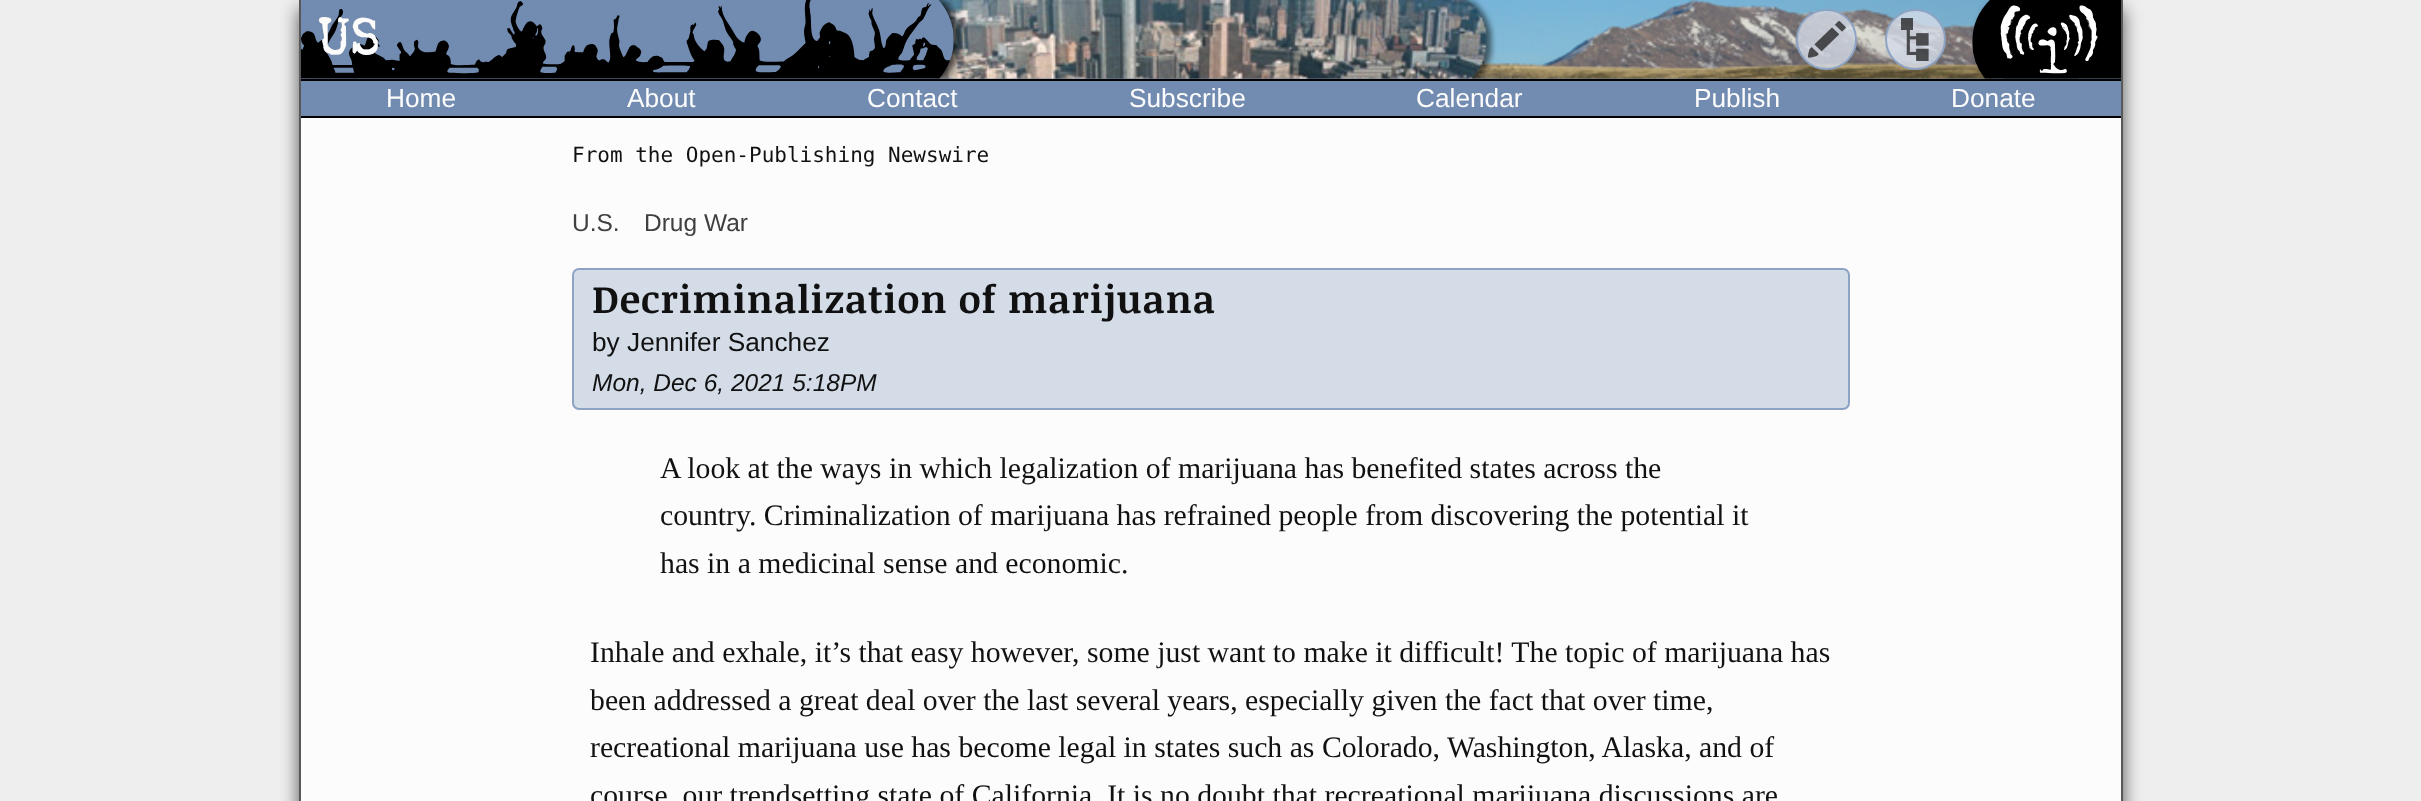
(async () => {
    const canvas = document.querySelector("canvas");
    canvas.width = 2421;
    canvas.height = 801;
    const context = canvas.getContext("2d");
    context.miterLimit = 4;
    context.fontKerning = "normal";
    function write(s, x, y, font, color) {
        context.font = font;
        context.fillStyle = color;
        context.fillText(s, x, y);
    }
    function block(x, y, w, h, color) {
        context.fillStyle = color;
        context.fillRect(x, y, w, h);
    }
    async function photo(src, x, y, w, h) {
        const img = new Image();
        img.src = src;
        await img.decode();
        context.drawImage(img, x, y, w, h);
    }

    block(0, 0, 2421, 801, "rgb(238, 238, 238)");
    context.fillStyle = "rgba(0, 0, 0, 0.65)";
    context.filter = "blur(9px)";
    context.beginPath();
    context.rect(299, 9, 1824, 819);
    context.fill();
    context.filter = "none";
    block(301, 118, 1820, 683, "rgb(252, 252, 252)");
    block(2121, 0, 2, 801, "rgb(88, 88, 88)");
    block(299, 0, 2, 801, "rgb(88, 88, 88)");
    block(301, 78, 1820, 1, "rgb(114, 139, 176)");
    block(301, 79, 1820, 2, "rgb(0, 0, 0)");
    await photo("media/5.png", 936, 0, 1056, 79);
    await photo("media/1.png", 301, 0, 664, 79);
    write("US", 319, 61, "62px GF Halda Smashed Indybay", "rgb(81, 99, 125)");
    write("US", 319, 61, "62px GF Halda Smashed Indybay", "rgb(252, 252, 252)");
    context.fillStyle = "rgba(212, 220, 232, 0.8)";
    context.beginPath();
    context.arc(1826.5, 39.5, 29.5, 0, Math.PI * 2);
    context.fill();
    context.strokeStyle = "rgb(141, 163, 196)";
    context.lineWidth = 2;
    context.stroke();
    await photo("media/2.png", 1808, 21, 38, 37);
    context.beginPath();
    context.arc(1915.5, 39.5, 29.5, 0, Math.PI * 2);
    context.fill();
    context.stroke();
    await photo("media/3.png", 1901, 18, 28, 43);
    await photo("media/4.png", 1971, 0, 150, 79);
    block(301, 81, 1820, 35, "rgb(114, 139, 176)");
    block(301, 116, 1820, 2, "rgb(0, 0, 0)");
    write("Home", 386, 107, "26.25px Liberation Sans", "rgb(252, 252, 252)");
    write("About", 627, 107, "26.25px Liberation Sans", "rgb(252, 252, 252)");
    write("Contact", 867, 107, "26.25px Liberation Sans", "rgb(252, 252, 252)");
    write("Subscribe", 1129, 107, "26.25px Liberation Sans", "rgb(252, 252, 252)");
    write("Calendar", 1416, 107, "26.25px Liberation Sans", "rgb(252, 252, 252)");
    write("Publish", 1694, 107, "26.25px Liberation Sans", "rgb(252, 252, 252)");
    write("Donate", 1951, 107, "26.25px Liberation Sans", "rgb(252, 252, 252)");
    write("From the Open-Publishing Newswire", 572, 162, "21px DejaVu Sans Mono", "rgb(17, 17, 17)");
    write("U.S.", 572, 231, "24.5px Liberation Sans", "rgb(64, 64, 64)");
    write("Drug War", 644, 231, "24.5px Liberation Sans", "rgb(64, 64, 64)");
    context.fillStyle = "rgb(212, 220, 232)";
    context.beginPath();
    context.roundRect(573, 269, 1276, 140, 6);
    context.fill();
    context.stroke();
    context.letterSpacing = "0.9px";
    write("Decriminalization of marijuana", 592, 313, "bold 38.5px Noticia Text", "rgb(17, 17, 17)");
    context.letterSpacing = "0px";
    write("by Jennifer Sanchez", 592, 351, "26.25px Liberation Sans", "rgb(17, 17, 17)");
    write("Mon, Dec 6, 2021 5:18PM", 592, 391, "italic 24.5px Liberation Sans", "rgb(17, 17, 17)");
    write("A look at the ways in which legalization of marijuana has benefited states across the", 660, 478, "29.75px Liberation Serif", "rgb(17, 17, 17)");
    write("country. Criminalization of marijuana has refrained people from discovering the potential it", 660, 525, "29.75px Liberation Serif", "rgb(17, 17, 17)");
    write("has in a medicinal sense and economic.", 660, 573, "29.75px Liberation Serif", "rgb(17, 17, 17)");
    write("Inhale and exhale, it’s that easy however, some just want to make it difficult! The topic of marijuana has", 590, 662, "29.75px Liberation Serif", "rgb(17, 17, 17)");
    write("been addressed a great deal over the last several years, especially given the fact that over time,", 590, 710, "29.75px Liberation Serif", "rgb(17, 17, 17)");
    write("recreational marijuana use has become legal in states such as Colorado, Washington, Alaska, and of", 590, 757, "29.75px Liberation Serif", "rgb(17, 17, 17)");
    write("course, our trendsetting state of California. It is no doubt that recreational marijuana discussions are", 590, 805, "29.75px Liberation Serif", "rgb(17, 17, 17)");
})();
